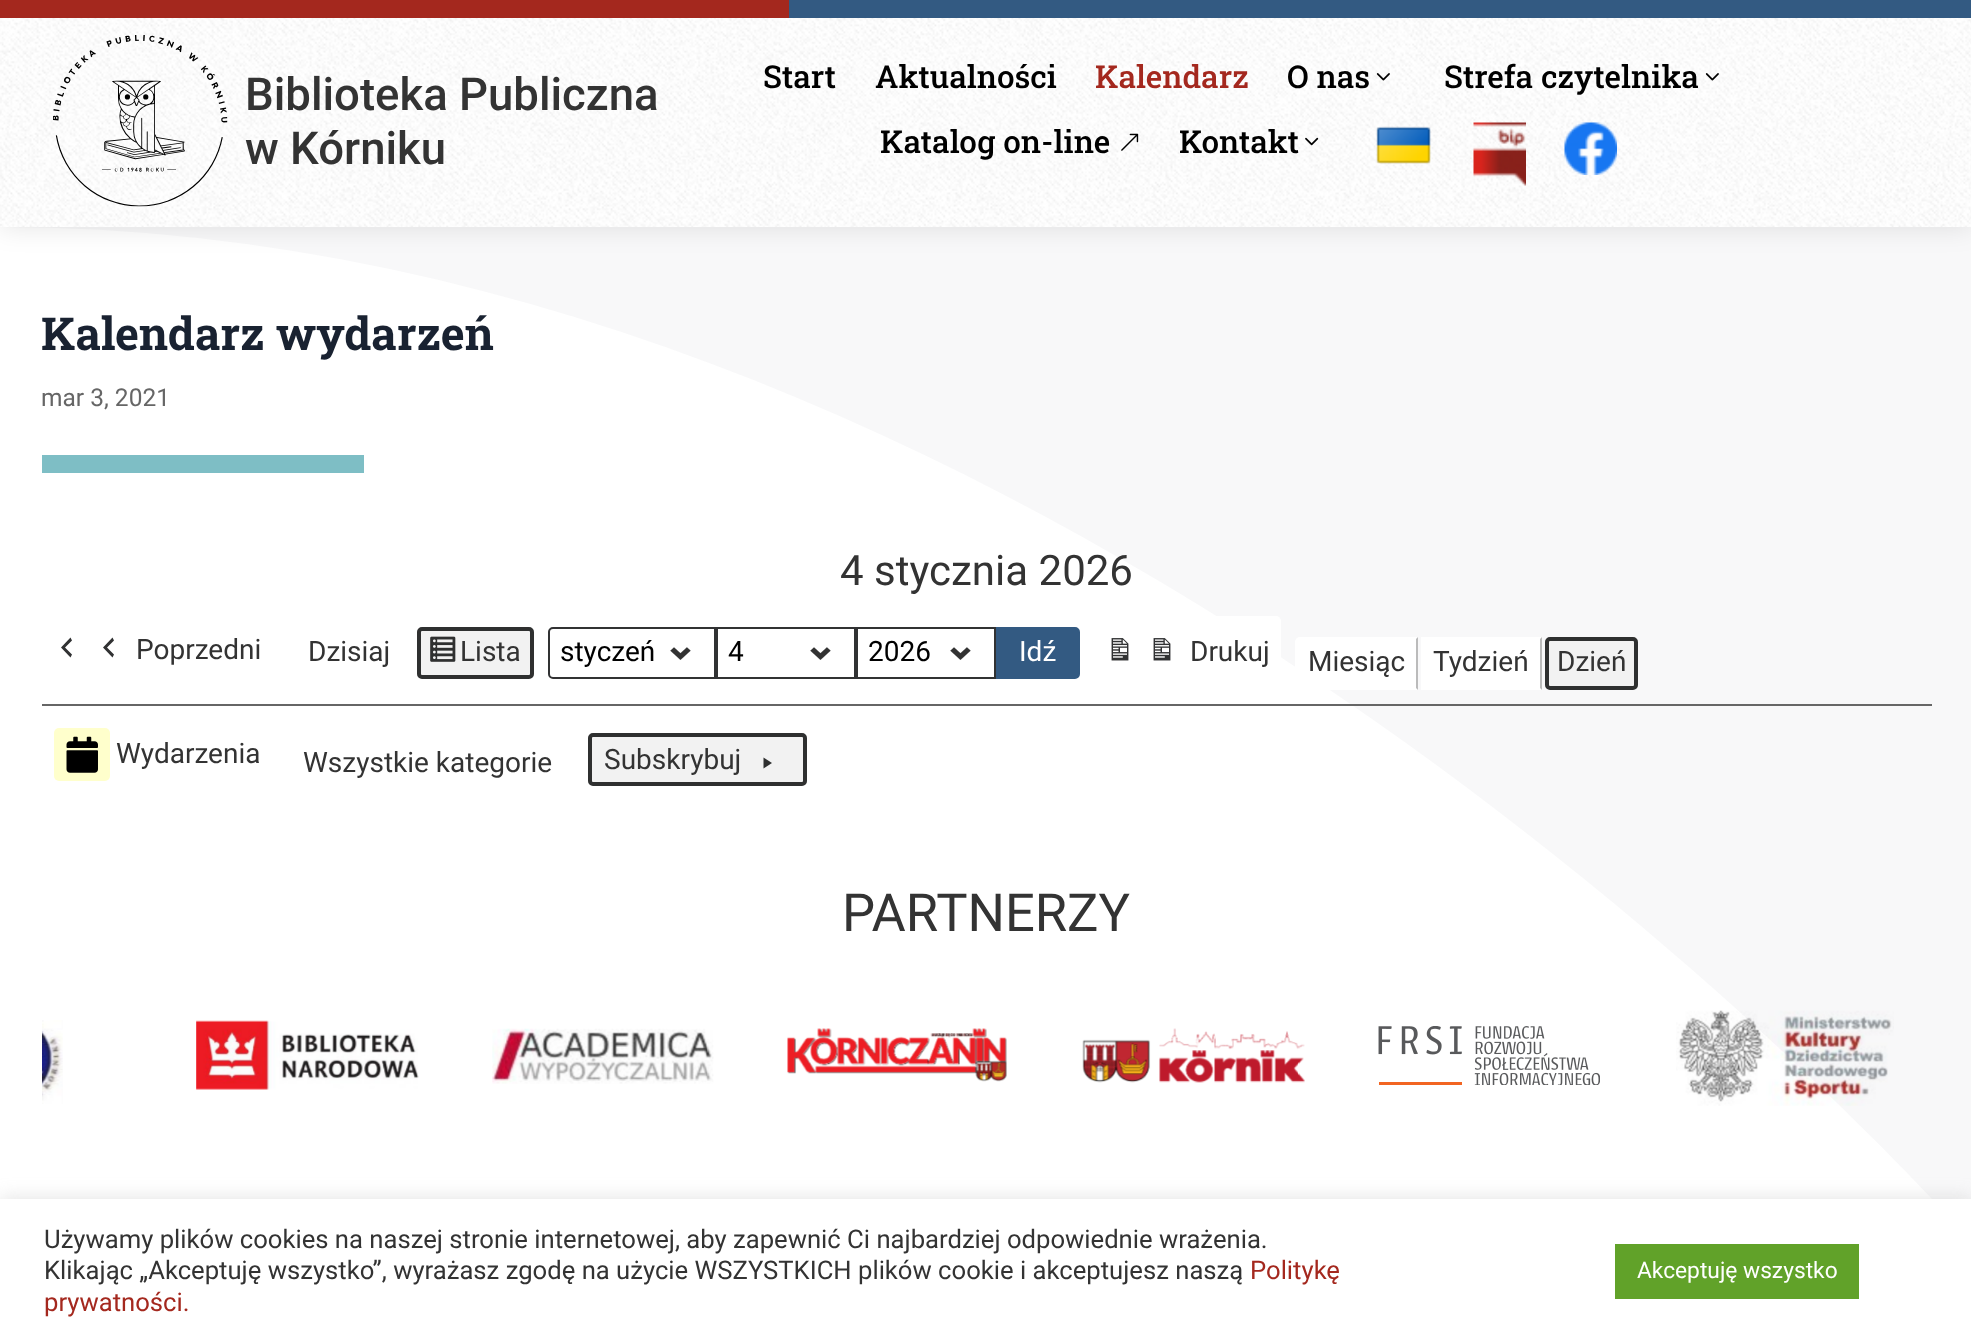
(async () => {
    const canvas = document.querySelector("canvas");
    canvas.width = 1971;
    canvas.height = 1342;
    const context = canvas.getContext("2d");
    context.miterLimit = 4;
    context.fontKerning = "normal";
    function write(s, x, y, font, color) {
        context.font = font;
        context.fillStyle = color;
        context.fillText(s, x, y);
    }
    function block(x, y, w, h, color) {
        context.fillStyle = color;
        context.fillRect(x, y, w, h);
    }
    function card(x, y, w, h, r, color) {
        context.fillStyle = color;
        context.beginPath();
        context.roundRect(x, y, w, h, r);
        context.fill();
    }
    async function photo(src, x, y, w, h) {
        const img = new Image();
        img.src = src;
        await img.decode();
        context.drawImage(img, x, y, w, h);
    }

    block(0, 0, 1971, 1342, "rgb(255, 255, 255)");
    await photo("media/14.png", 42, 1020, 21, 84);
    await photo("media/15.png", 196, 1020, 223, 70);
    await photo("media/16.png", 492, 1028, 222, 56);
    await photo("media/17.png", 787, 1028, 220, 54);
    await photo("media/18.png", 1082, 1028, 223, 55);
    await photo("media/19.png", 1378, 1026, 222, 59);
    await photo("media/20.png", 1676, 1010, 218, 96);
    context.fillStyle = "rgba(73, 78, 107, 0.04)";
    context.beginPath();
    context.moveTo(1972, 227);
    context.lineTo(0, 227);
    context.bezierCurveTo(1089, 227, 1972, 1242, 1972, 1242);
    context.closePath();
    context.fill();
    context.fillStyle = "rgba(0, 0, 0, 0.1)";
    context.filter = "blur(13px)";
    context.beginPath();
    context.rect(0, 18, 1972, 210);
    context.fill();
    context.filter = "none";
    block(0, 0, 789, 18, "rgb(164, 40, 30)");
    block(789, 0, 1182, 18, "rgb(51, 90, 130)");
    await photo("media/1.png", 0, 18, 1971, 209);
    await photo("media/2.png", 53, 35, 175, 172);
    write("Biblioteka Publiczna", 245, 110, "500 45.5px Roboto", "rgb(51, 51, 51)");
    write("w Kórniku", 245, 164, "500 45.5px Roboto", "rgb(51, 51, 51)");
    write("Start", 763, 88, "500 31.5px Roboto Slab", "rgb(0, 0, 0)");
    write("Aktualności", 875, 88, "500 31.5px Roboto Slab", "rgb(0, 0, 0)");
    write("Kalendarz", 1095, 88, "500 31.5px Roboto Slab", "rgb(164, 40, 30)");
    write("O nas", 1287, 88, "500 31.5px Roboto Slab", "rgb(0, 0, 0)");
    await photo("media/3.png", 1376, 73, 14, 8);
    write("Strefa czytelnika", 1444, 88, "500 31.5px Roboto Slab", "rgb(0, 0, 0)");
    await photo("media/4.png", 1705, 73, 14, 8);
    write("Katalog on-line", 880, 153, "500 31.5px Roboto Slab", "rgb(0, 0, 0)");
    await photo("media/5.png", 1121, 133, 18, 18);
    write("Kontakt", 1179, 153, "500 31.5px Roboto Slab", "rgb(0, 0, 0)");
    await photo("media/6.png", 1305, 137, 14, 9);
    await photo("media/7.png", 1376, 126, 55, 38);
    await photo("media/8.png", 1473, 122, 53, 64);
    await photo("media/9.png", 1564, 122, 53, 53);
    write("Kalendarz wydarzeń", 41, 350, "bold 45.5px Roboto Slab", "rgb(25, 34, 49)");
    write("mar 3, 2021", 41, 406, "24.5px Roboto", "rgb(102, 102, 102)");
    block(42, 455, 322, 18, "rgb(126, 190, 197)");
    write("4 stycznia 2026", 840, 585, "42px Roboto", "rgb(51, 51, 51)");
    context.fillStyle = "rgb(49, 50, 51)";
    context.beginPath();
    context.moveTo(72, 640.5);
    context.lineTo(65, 647.5);
    context.lineTo(72, 654.5);
    context.lineTo(70.5, 657.5);
    context.lineTo(61, 647.5);
    context.lineTo(70.5, 637.5);
    context.closePath();
    context.fill();
    context.beginPath();
    context.moveTo(114, 640.5);
    context.lineTo(107, 647.5);
    context.lineTo(114, 654.5);
    context.lineTo(112.5, 657.5);
    context.lineTo(103, 647.5);
    context.lineTo(112.5, 637.5);
    context.closePath();
    context.fill();
    write("Poprzedni", 136, 659, "28px Roboto", "rgb(51, 51, 51)");
    write("Dzisiaj", 308, 661, "28px Roboto", "rgb(51, 51, 51)");
    card(417, 627, 117, 52, 5, "rgb(242, 242, 242)");
    context.beginPath();
    context.roundRect(419, 629, 113, 48, 3);
    context.strokeStyle = "rgb(47, 48, 48)";
    context.lineWidth = 4;
    context.stroke();
    await photo("media/10.png", 430, 636, 26, 26);
    write("Lista", 460, 661, "28px Roboto", "rgb(51, 51, 51)");
    await photo("media/11.png", 670, 647, 21, 13);
    context.beginPath();
    context.roundRect(549, 628, 166, 50, [4, 0, 0, 4]);
    context.strokeStyle = "rgb(49, 50, 51)";
    context.lineWidth = 2;
    context.stroke();
    write("styczeń", 560, 661, "28px Roboto", "rgb(0, 0, 0)");
    await photo("media/11.png", 810, 647, 21, 13);
    context.strokeRect(717, 628, 138, 50);
    write("4", 728, 661, "28px Roboto", "rgb(0, 0, 0)");
    await photo("media/11.png", 950, 647, 21, 13);
    context.strokeRect(857, 628, 138, 50);
    write("2026", 868, 661, "28px Roboto", "rgb(0, 0, 0)");
    context.fillStyle = "rgb(51, 90, 130)";
    context.beginPath();
    context.roundRect(997, 628, 82, 50, [0, 4, 4, 0]);
    context.fill();
    context.strokeStyle = "rgb(51, 90, 130)";
    context.stroke();
    write("Idź", 1019, 661, "28px Roboto", "rgb(255, 255, 255)");
    card(1094, 616, 187, 74, 5, "rgb(255, 255, 255)");
    await photo("media/12.png", 1111, 638, 18, 23);
    await photo("media/12.png", 1153, 638, 18, 23);
    write("Drukuj", 1190, 661, "28px Roboto", "rgb(51, 51, 51)");
    context.fillStyle = "rgb(255, 255, 255)";
    context.beginPath();
    context.roundRect(1295, 637, 123, 53, [5, 0, 0, 5]);
    context.fill();
    context.fillStyle = "rgb(187, 187, 187)";
    context.beginPath();
    context.moveTo(1418, 637);
    context.lineTo(1416, 639);
    context.lineTo(1416, 688);
    context.lineTo(1418, 690);
    context.closePath();
    context.fill();
    write("Miesiąc", 1308, 671, "28px Roboto", "rgb(51, 51, 51)");
    block(1421, 637, 121, 53, "rgb(255, 255, 255)");
    context.fillStyle = "rgb(187, 187, 187)";
    context.beginPath();
    context.moveTo(1542, 637);
    context.lineTo(1542, 690);
    context.lineTo(1540, 688);
    context.lineTo(1540, 639);
    context.closePath();
    context.fill();
    write("Tydzień", 1433, 671, "28px Roboto", "rgb(51, 51, 51)");
    card(1545, 637, 93, 53, 5, "rgb(242, 242, 242)");
    context.beginPath();
    context.roundRect(1547, 639, 89, 49, 3);
    context.strokeStyle = "rgb(47, 48, 48)";
    context.lineWidth = 4;
    context.stroke();
    write("Dzień", 1557, 671, "28px Roboto", "rgb(51, 51, 51)");
    block(42, 704, 1890, 2, "rgb(102, 102, 102)");
    card(54, 728, 56, 53, 5, "rgb(255, 255, 204)");
    await photo("media/13.png", 66, 736, 32, 37);
    write("Wydarzenia", 116, 763, "28px Roboto", "rgb(51, 51, 51)");
    write("Wszystkie kategorie", 303, 772, "28px Roboto", "rgb(51, 51, 51)");
    card(588, 733, 219, 53, 5, "rgb(242, 242, 242)");
    context.fillStyle = "rgb(47, 48, 48)";
    context.beginPath();
    context.moveTo(763.5, 757.5);
    context.lineTo(772, 763);
    context.lineTo(763.5, 768.5);
    context.closePath();
    context.fill();
    context.beginPath();
    context.roundRect(590, 735, 215, 49, 3);
    context.stroke();
    write("Subskrybuj", 604, 769, "28px Roboto", "rgb(51, 51, 51)");
    write("PARTNERZY", 842, 931, "52.5px Roboto", "rgb(51, 51, 51)");
    context.fillStyle = "rgba(172, 171, 171, 0.3)";
    context.filter = "blur(9px)";
    context.beginPath();
    context.rect(0, 1197, 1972, 144);
    context.fill();
    context.filter = "none";
    block(0, 1199, 1971, 143, "rgb(255, 255, 255)");
    write("Używamy plików cookies na naszej stronie internetowej, aby zapewnić Ci najbardziej odpowiednie wrażenia.", 44, 1248, "25.65px Roboto", "rgb(51, 51, 51)");
    write("Klikając „Akceptuję wszystko”, wyrażasz zgodę na użycie WSZYSTKICH plików cookie i akceptujesz naszą", 44, 1279, "25.65px Roboto", "rgb(51, 51, 51)");
    write("Politykę", 1250, 1279, "25.65px Roboto", "rgb(164, 40, 30)");
    write("prywatności.", 44, 1311, "25.65px Roboto", "rgb(164, 40, 30)");
    block(1615, 1244, 244, 55, "rgb(97, 162, 41)");
    write("Akceptuję wszystko", 1637, 1278, "22.75px Roboto", "rgb(255, 255, 255)");
})();
